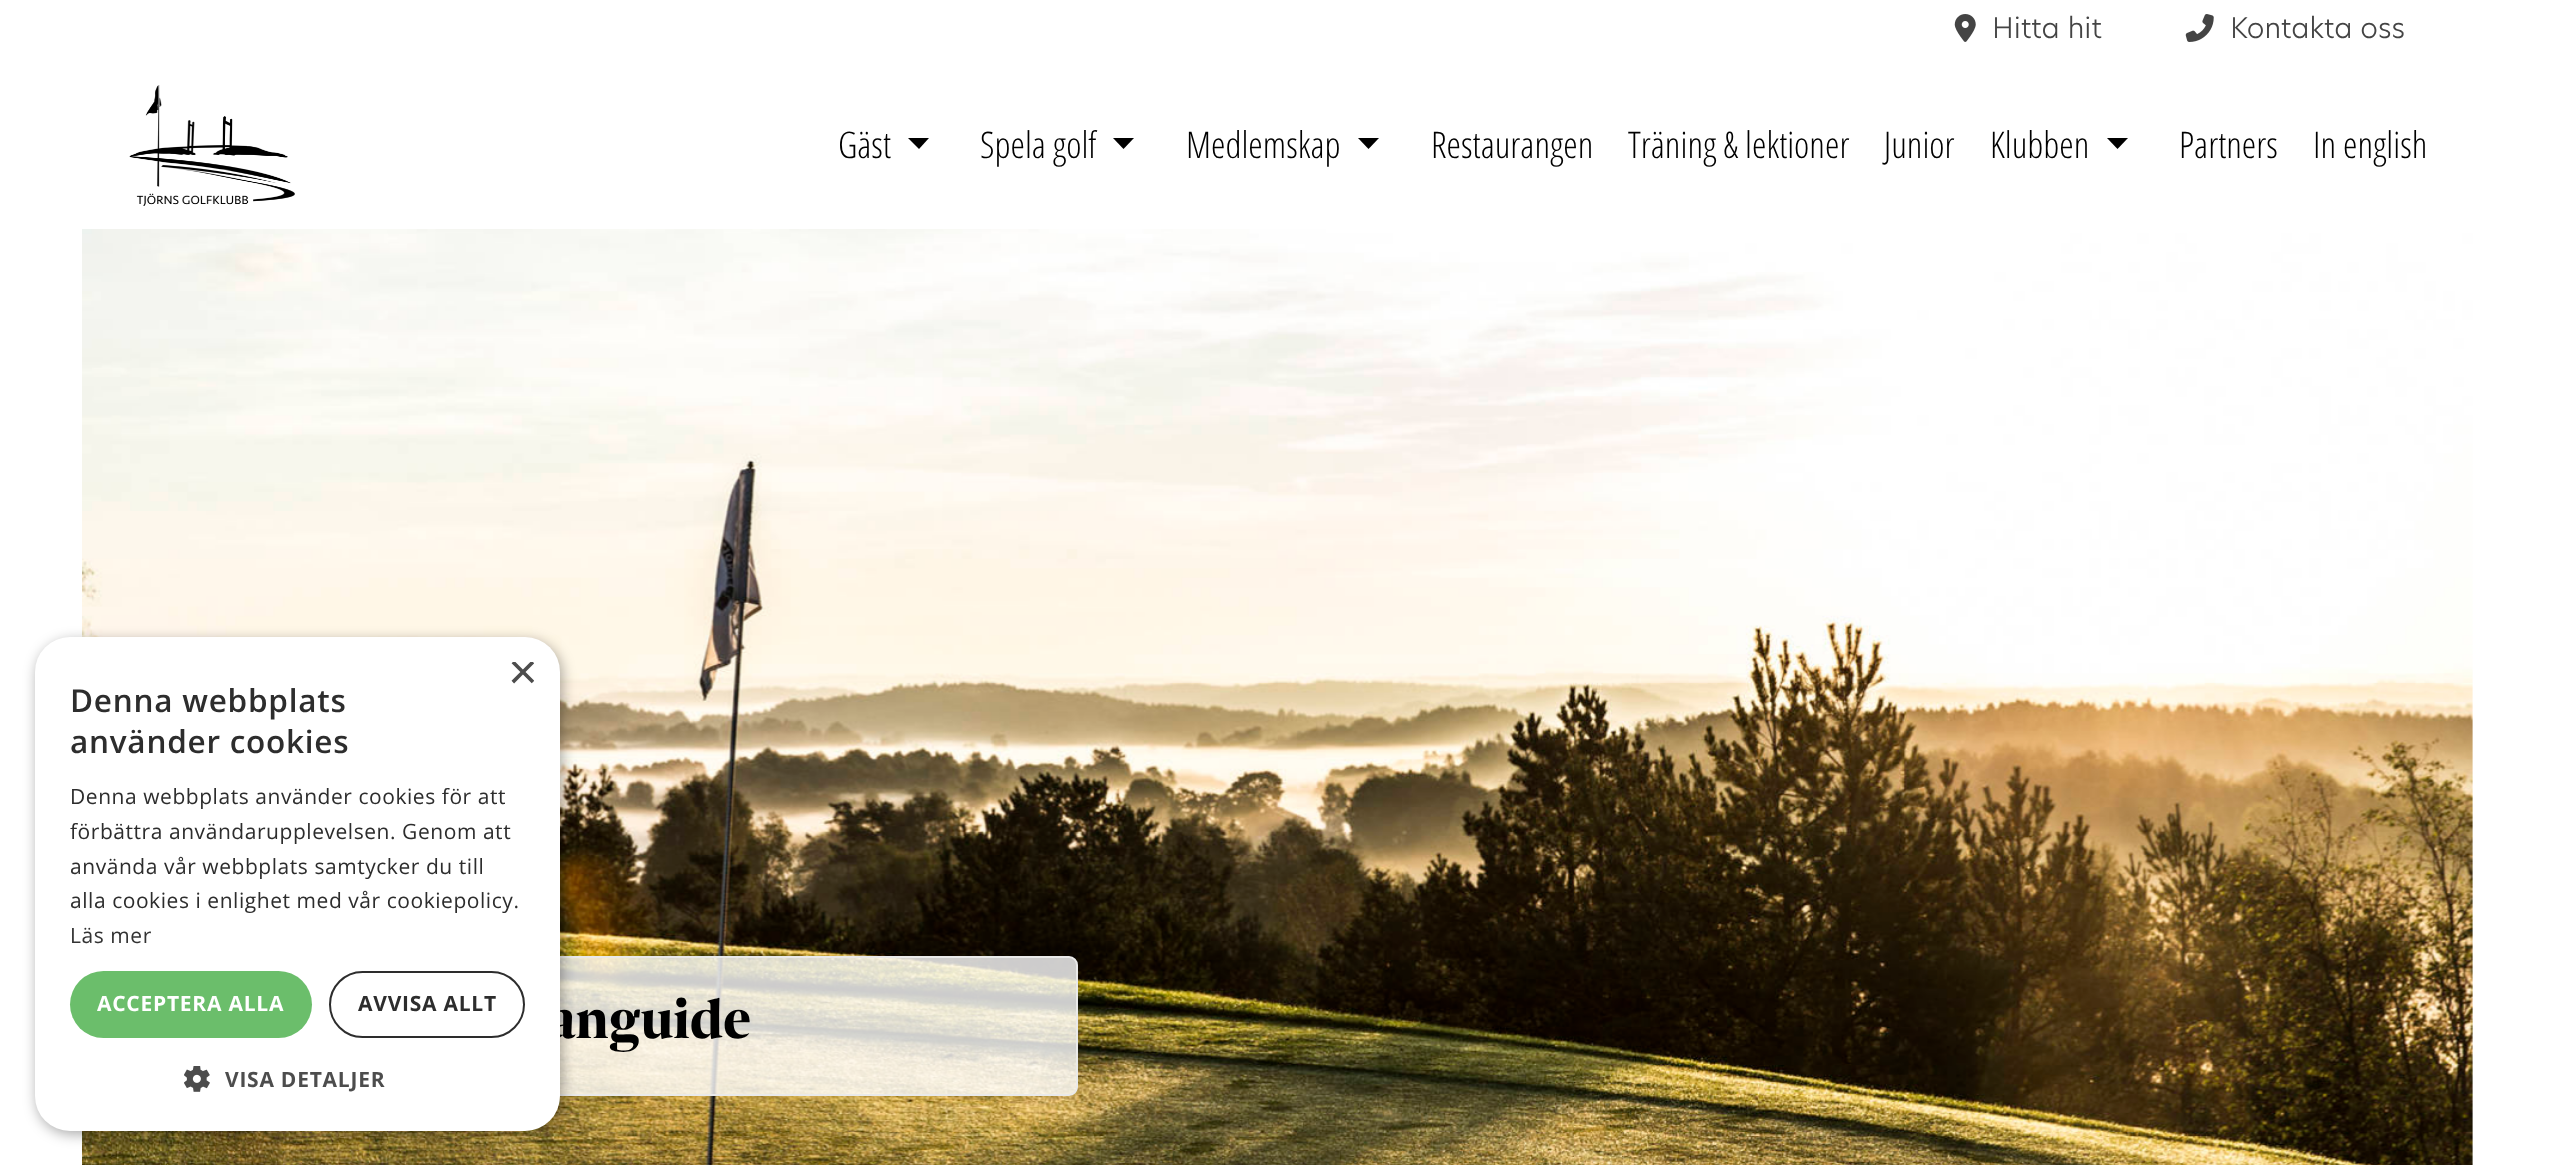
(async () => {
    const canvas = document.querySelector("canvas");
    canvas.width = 2555;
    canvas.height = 1165;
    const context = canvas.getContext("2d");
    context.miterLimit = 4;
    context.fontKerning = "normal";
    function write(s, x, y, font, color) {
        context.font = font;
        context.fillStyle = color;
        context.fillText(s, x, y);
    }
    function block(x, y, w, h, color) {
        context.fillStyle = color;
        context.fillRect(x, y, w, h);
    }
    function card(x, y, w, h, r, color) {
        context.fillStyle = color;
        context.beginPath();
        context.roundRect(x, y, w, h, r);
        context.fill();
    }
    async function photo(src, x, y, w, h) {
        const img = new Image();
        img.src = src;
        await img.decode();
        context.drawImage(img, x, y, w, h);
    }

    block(0, 0, 2555, 1165, "rgb(255, 255, 255)");
    await photo("media/5.png", 82, 229, 2391, 936);
    context.fillStyle = "rgba(255, 255, 255, 0.8)";
    context.beginPath();
    context.roundRect(482, 957, 595, 138, 8);
    context.fill();
    context.strokeStyle = "rgb(234, 234, 234)";
    context.lineWidth = 2;
    context.stroke();
    context.fillStyle = "rgba(0, 0, 0, 0.35)";
    context.filter = "blur(7px)";
    context.beginPath();
    context.roundRect(37, 641, 525, 493, 35);
    context.fill();
    context.filter = "none";
    write("anguide", 548, 1038, "bold 56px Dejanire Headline", "rgb(0, 0, 0)");
    card(35, 637, 525, 494, 35, "rgb(255, 255, 255)");
    context.save();
    context.beginPath();
    context.rect(508, 662, 26, 26);
    context.clip();
    write("×", 508, 689, "51px Liberation Sans", "rgb(77, 77, 77)");
    context.restore();
    context.letterSpacing = "0.75px";
    write("Denna webbplats", 70, 712, "600 31.5px Open Sans", "rgb(45, 45, 45)");
    write("använder cookies", 70, 753, "600 31.5px Open Sans", "rgb(45, 45, 45)");
    context.letterSpacing = "0.55px";
    write("Denna webbplats använder cookies för att", 70, 804, "21px Open Sans", "rgb(45, 45, 45)");
    write("förbättra användarupplevelsen. Genom att", 70, 839, "21px Open Sans", "rgb(45, 45, 45)");
    write("använda vår webbplats samtycker du till", 70, 874, "21px Open Sans", "rgb(45, 45, 45)");
    write("alla cookies i enlighet med vår cookiepolicy.", 70, 908, "21px Open Sans", "rgb(45, 45, 45)");
    write("Läs mer", 70, 943, "21px Open Sans", "rgb(51, 51, 51)");
    card(70, 971, 242, 67, 33.5, "rgb(107, 190, 107)");
    context.letterSpacing = "0.75px";
    write("ACCEPTERA ALLA", 97, 1011, "bold 21px Open Sans", "rgb(255, 255, 255)");
    context.beginPath();
    context.roundRect(330, 972, 194, 65, 32.5);
    context.strokeStyle = "rgb(45, 45, 45)";
    context.stroke();
    write("AVVISA ALLT", 358, 1011, "bold 21px Open Sans", "rgb(45, 45, 45)");
    await photo("media/1.png", 184, 1066, 26, 26);
    write("VISA DETALJER", 225, 1087, "bold 21px Open Sans", "rgb(77, 77, 77)");
    await photo("media/2.png", 1954, 14, 22, 28);
    context.letterSpacing = "0px";
    write("Hitta hit", 1992, 38, "300 28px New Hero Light", "rgb(68, 68, 68)");
    await photo("media/3.png", 2185, 14, 29, 28);
    write("Kontakta oss", 2230, 38, "300 28px New Hero Light", "rgb(68, 68, 68)");
    await photo("media/4.png", 129, 85, 166, 121);
    write("Gäst", 838, 158, "300 36.75px Open Sans Condensed", "rgb(0, 0, 0)");
    context.beginPath();
    context.moveTo(908, 138);
    context.lineTo(929, 138);
    context.lineTo(919, 149);
    context.closePath();
    context.fill();
    write("Spela golf", 980, 158, "300 36.75px Open Sans Condensed", "rgb(0, 0, 0)");
    context.beginPath();
    context.moveTo(1113, 138);
    context.lineTo(1134, 138);
    context.lineTo(1123.5, 149);
    context.closePath();
    context.fill();
    write("Medlemskap", 1186, 158, "300 36.75px Open Sans Condensed", "rgb(0, 0, 0)");
    context.beginPath();
    context.moveTo(1358, 138);
    context.lineTo(1379, 138);
    context.lineTo(1368.5, 149);
    context.closePath();
    context.fill();
    write("Restaurangen", 1431, 158, "300 36.75px Open Sans Condensed", "rgb(0, 0, 0)");
    write("Träning & lektioner", 1628, 158, "300 36.75px Open Sans Condensed", "rgb(0, 0, 0)");
    write("Junior", 1884, 158, "300 36.75px Open Sans Condensed", "rgb(0, 0, 0)");
    write("Klubben", 1990, 158, "300 36.75px Open Sans Condensed", "rgb(0, 0, 0)");
    context.beginPath();
    context.moveTo(2107, 138);
    context.lineTo(2128, 138);
    context.lineTo(2117.5, 149);
    context.closePath();
    context.fill();
    write("Partners", 2179, 158, "300 36.75px Open Sans Condensed", "rgb(0, 0, 0)");
    write("In english", 2313, 158, "300 36.75px Open Sans Condensed", "rgb(0, 0, 0)");
})();
